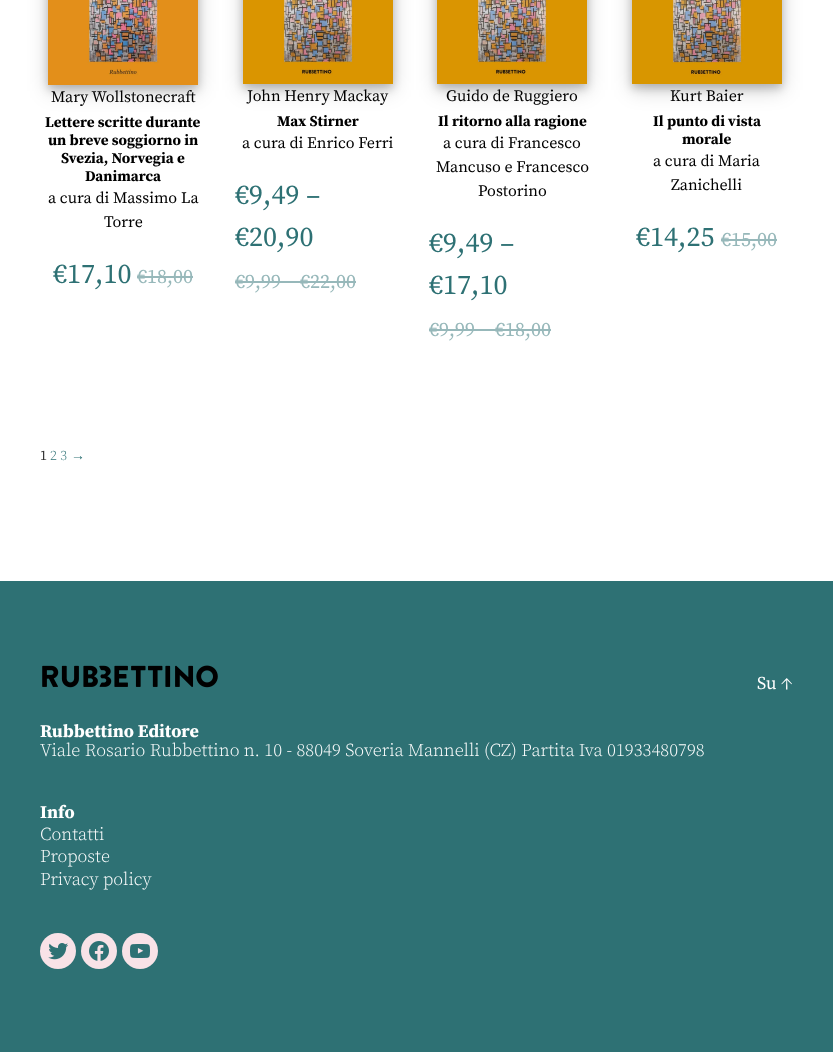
(async () => {
    const canvas = document.querySelector("canvas");
    canvas.width = 833;
    canvas.height = 1052;
    const context = canvas.getContext("2d");
    context.miterLimit = 4;
    context.fontKerning = "normal";
    function write(s, x, y, font, color) {
        context.font = font;
        context.fillStyle = color;
        context.fillText(s, x, y);
    }
    function block(x, y, w, h, color) {
        context.fillStyle = color;
        context.fillRect(x, y, w, h);
    }
    async function photo(src, x, y, w, h) {
        const img = new Image();
        img.src = src;
        await img.decode();
        context.drawImage(img, x, y, w, h);
    }

    block(0, 0, 833, 1052, "rgb(255, 255, 255)");
    context.fillStyle = "rgba(0, 0, 0, 0.19)";
    context.filter = "blur(10px)";
    context.beginPath();
    context.rect(48, -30, 150, 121);
    context.fill();
    context.filter = "none";
    context.fillStyle = "rgba(0, 0, 0, 0.2)";
    context.filter = "blur(4px)";
    context.beginPath();
    context.rect(48, -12, 150, 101);
    context.fill();
    context.filter = "none";
    await photo("media/1.png", 48, 0, 150, 85);
    write("Mary Wollstonecraft", 51, 102, "16px Source Serif Pro", "rgb(0, 0, 0)");
    write("Lettere scritte durante", 45, 127, "bold 15px Source Serif Pro", "rgb(0, 0, 0)");
    write("un breve soggiorno in", 48, 145, "bold 15px Source Serif Pro", "rgb(0, 0, 0)");
    write("Svezia, Norvegia e", 61, 163, "bold 15px Source Serif Pro", "rgb(0, 0, 0)");
    write("Danimarca", 85, 181, "bold 15px Source Serif Pro", "rgb(0, 0, 0)");
    write("a cura di Massimo La", 48, 203, "16px Source Serif Pro", "rgb(0, 0, 0)");
    write("Torre", 104, 227, "16px Source Serif Pro", "rgb(0, 0, 0)");
    write("€17,10", 53, 283, "28px Source Serif Pro", "rgb(46, 113, 116)");
    write("€18,00", 137, 283, "20px Source Serif Pro", "rgb(151, 184, 186)");
    block(137, 276, 56, 2, "rgb(151, 184, 186)");
    context.fillStyle = "rgba(0, 0, 0, 0.19)";
    context.filter = "blur(10px)";
    context.beginPath();
    context.rect(243, -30, 150, 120);
    context.fill();
    context.filter = "none";
    context.fillStyle = "rgba(0, 0, 0, 0.2)";
    context.filter = "blur(4px)";
    context.beginPath();
    context.rect(243, -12, 150, 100);
    context.fill();
    context.filter = "none";
    await photo("media/2.png", 243, 0, 150, 84);
    write("John Henry Mackay", 247, 101, "16px Source Serif Pro", "rgb(0, 0, 0)");
    write("Max Stirner", 277, 126, "bold 15px Source Serif Pro", "rgb(0, 0, 0)");
    write("a cura di Enrico Ferri", 242, 148, "16px Source Serif Pro", "rgb(0, 0, 0)");
    write("€9,49 –", 235, 204, "28px Source Serif Pro", "rgb(46, 113, 116)");
    write("€20,90", 235, 246, "28px Source Serif Pro", "rgb(46, 113, 116)");
    write("€9,99", 235, 288, "20px Source Serif Pro", "rgb(151, 184, 186)");
    block(235, 281, 65, 2, "rgb(151, 184, 186)");
    write("€22,00", 300, 288, "20px Source Serif Pro", "rgb(151, 184, 186)");
    block(300, 281, 56, 2, "rgb(151, 184, 186)");
    context.fillStyle = "rgba(0, 0, 0, 0.19)";
    context.filter = "blur(10px)";
    context.beginPath();
    context.rect(437, -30, 150, 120);
    context.fill();
    context.filter = "none";
    context.fillStyle = "rgba(0, 0, 0, 0.2)";
    context.filter = "blur(4px)";
    context.beginPath();
    context.rect(437, -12, 150, 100);
    context.fill();
    context.filter = "none";
    await photo("media/3.png", 437, 0, 150, 84);
    write("Guido de Ruggiero", 446, 101, "16px Source Serif Pro", "rgb(0, 0, 0)");
    write("Il ritorno alla ragione", 438, 126, "bold 15px Source Serif Pro", "rgb(0, 0, 0)");
    write("a cura di Francesco", 443, 148, "16px Source Serif Pro", "rgb(0, 0, 0)");
    write("Mancuso e Francesco", 436, 172, "16px Source Serif Pro", "rgb(0, 0, 0)");
    write("Postorino", 478, 196, "16px Source Serif Pro", "rgb(0, 0, 0)");
    write("€9,49 –", 429, 252, "28px Source Serif Pro", "rgb(46, 113, 116)");
    write("€17,10", 429, 294, "28px Source Serif Pro", "rgb(46, 113, 116)");
    write("€9,99", 429, 336, "20px Source Serif Pro", "rgb(151, 184, 186)");
    block(429, 329, 66, 2, "rgb(151, 184, 186)");
    write("€18,00", 495, 336, "20px Source Serif Pro", "rgb(151, 184, 186)");
    block(495, 329, 56, 2, "rgb(151, 184, 186)");
    context.fillStyle = "rgba(0, 0, 0, 0.19)";
    context.filter = "blur(10px)";
    context.beginPath();
    context.rect(632, -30, 150, 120);
    context.fill();
    context.filter = "none";
    context.fillStyle = "rgba(0, 0, 0, 0.2)";
    context.filter = "blur(4px)";
    context.beginPath();
    context.rect(632, -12, 150, 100);
    context.fill();
    context.filter = "none";
    await photo("media/4.png", 632, 0, 150, 84);
    write("Kurt Baier", 670, 101, "16px Source Serif Pro", "rgb(0, 0, 0)");
    write("Il punto di vista", 653, 126, "bold 15px Source Serif Pro", "rgb(0, 0, 0)");
    write("morale", 682, 144, "bold 15px Source Serif Pro", "rgb(0, 0, 0)");
    write("a cura di Maria", 653, 166, "16px Source Serif Pro", "rgb(0, 0, 0)");
    write("Zanichelli", 671, 190, "16px Source Serif Pro", "rgb(0, 0, 0)");
    write("€14,25", 636, 246, "28px Source Serif Pro", "rgb(46, 113, 116)");
    write("€15,00", 721, 246, "20px Source Serif Pro", "rgb(151, 184, 186)");
    block(721, 239, 56, 2, "rgb(151, 184, 186)");
    write("1", 40, 460, "14px Source Serif Pro", "rgb(51, 51, 51)");
    write("2 3", 50, 460, "300 14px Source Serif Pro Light", "rgb(46, 113, 116)");
    write("→", 71, 460, "14px Liberation Serif", "rgb(46, 113, 116)");
    block(0, 581, 833, 471, "rgb(46, 113, 116)");
    write("Su ↑", 757, 689, "18px Source Serif Pro", "rgb(255, 255, 255)");
    await photo("media/5.png", 42, 665, 176, 23);
    write("Rubbettino Editore", 40, 737, "bold 18px Source Serif Pro", "rgb(255, 255, 255)");
    write("Viale Rosario Rubbettino n. 10 - 88049 Soveria Mannelli (CZ) Partita Iva 01933480798", 40, 756, "300 18px Source Serif Pro Light", "rgb(255, 255, 255)");
    write("Info", 40, 818, "bold 18px Source Serif Pro", "rgb(255, 255, 255)");
    write("Contatti", 40, 840, "300 18px Source Serif Pro Light", "rgb(255, 255, 255)");
    write("Proposte", 40, 862, "300 18px Source Serif Pro Light", "rgb(255, 255, 255)");
    write("Privacy policy", 40, 885, "300 18px Source Serif Pro Light", "rgb(255, 255, 255)");
    context.fillStyle = "rgb(248, 226, 231)";
    context.beginPath();
    context.arc(58, 951, 18, 0, Math.PI * 2);
    context.fill();
    await photo("media/6.png", 48, 943, 20, 17);
    context.beginPath();
    context.arc(99, 951, 18, 0, Math.PI * 2);
    context.fill();
    await photo("media/7.png", 89, 941, 20, 20);
    context.beginPath();
    context.arc(140, 951, 18, 0, Math.PI * 2);
    context.fill();
    await photo("media/8.png", 130, 944, 20, 14);
})();
